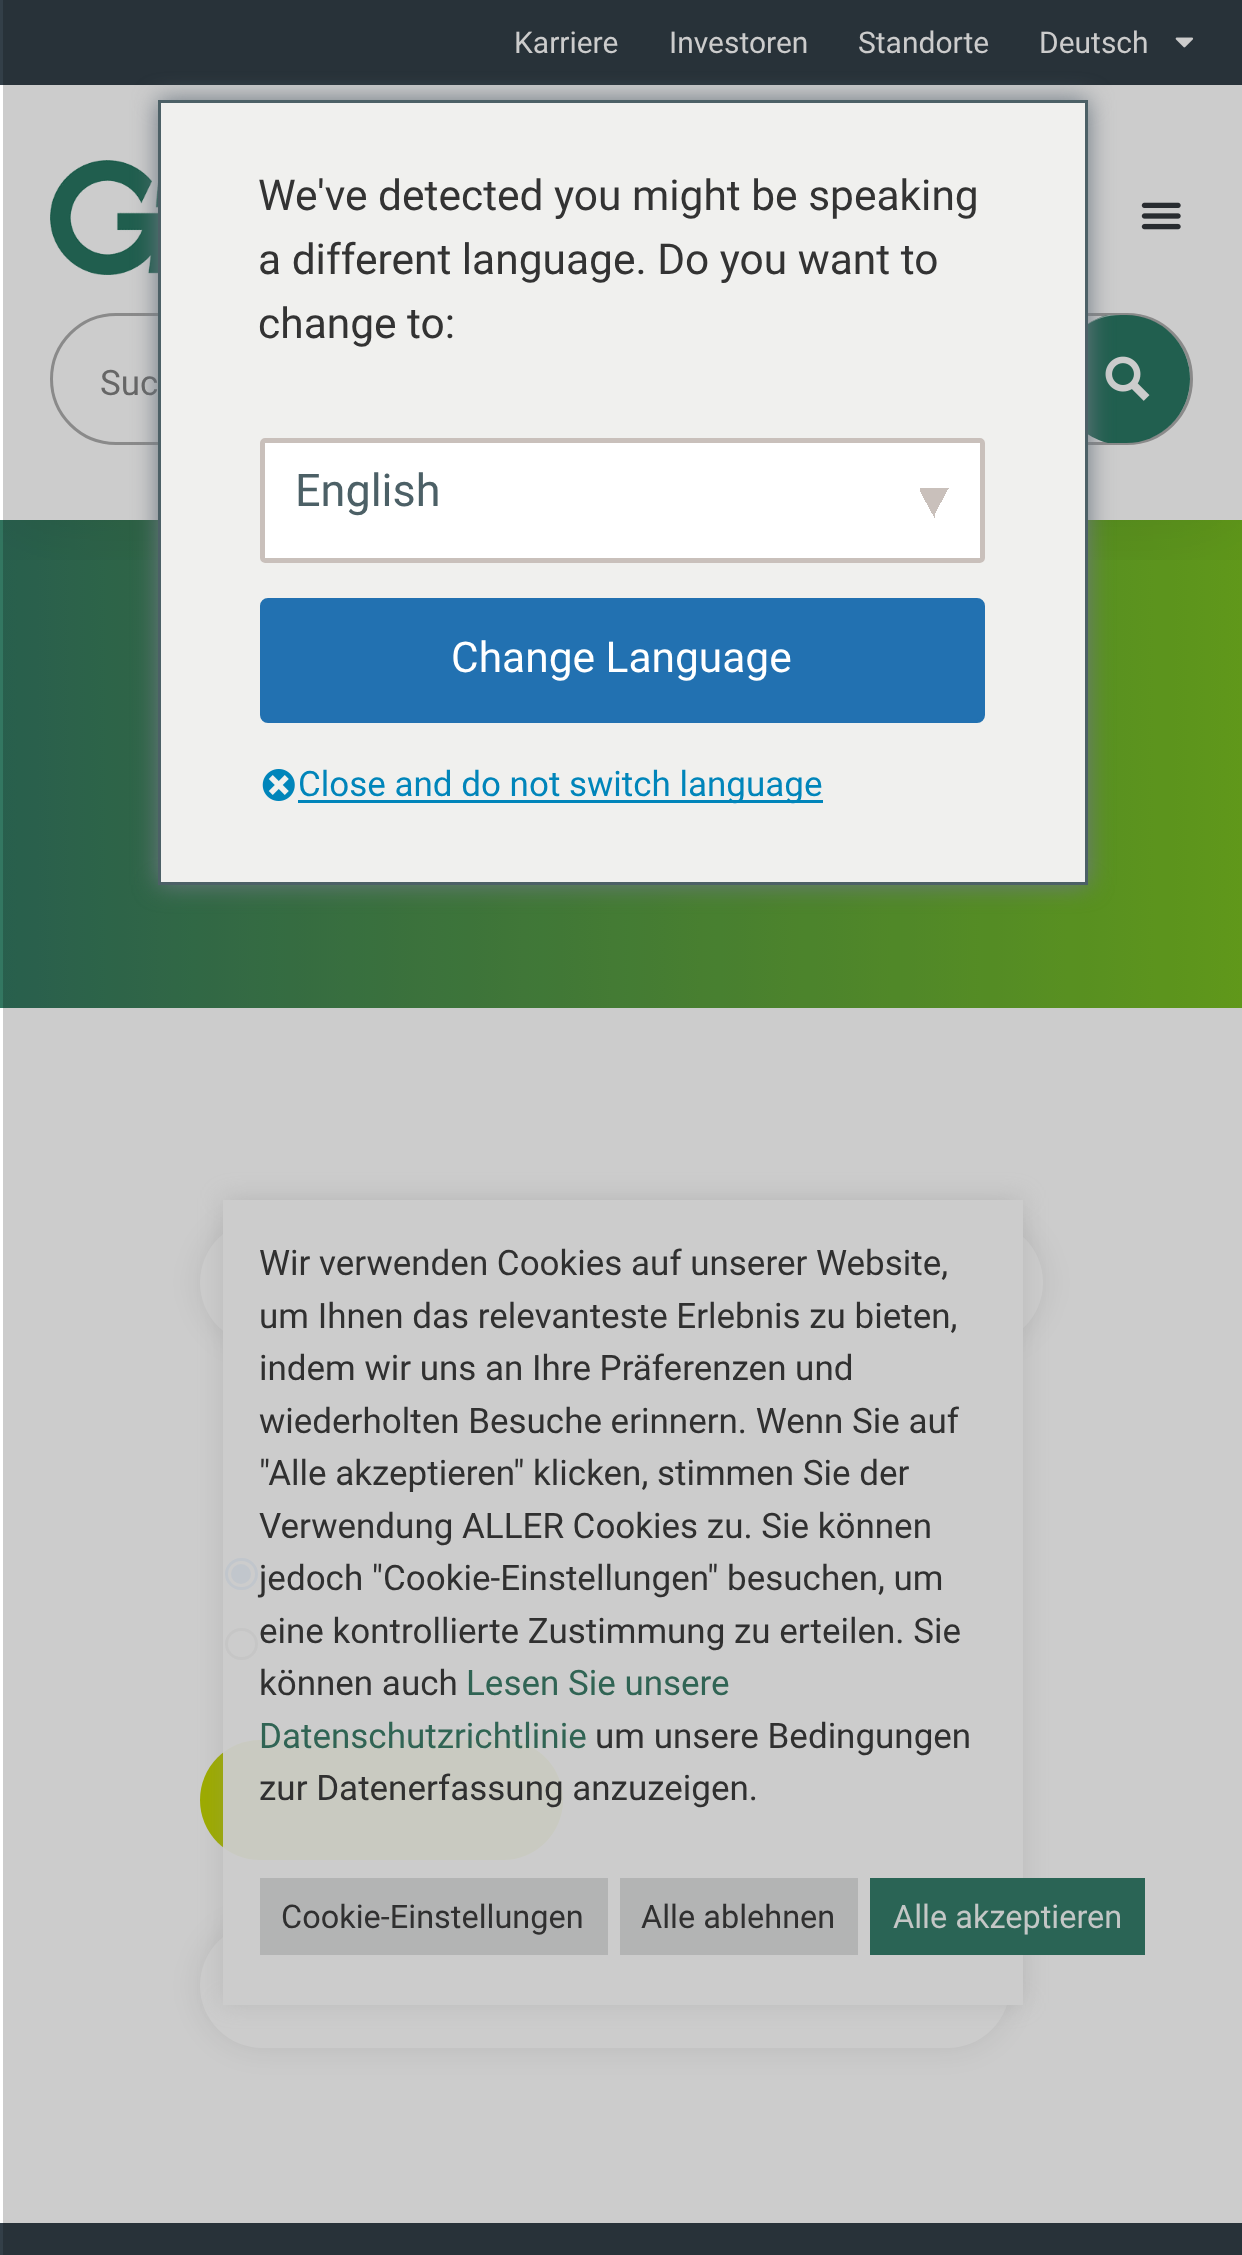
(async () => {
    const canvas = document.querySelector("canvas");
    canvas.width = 1242;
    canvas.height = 2255;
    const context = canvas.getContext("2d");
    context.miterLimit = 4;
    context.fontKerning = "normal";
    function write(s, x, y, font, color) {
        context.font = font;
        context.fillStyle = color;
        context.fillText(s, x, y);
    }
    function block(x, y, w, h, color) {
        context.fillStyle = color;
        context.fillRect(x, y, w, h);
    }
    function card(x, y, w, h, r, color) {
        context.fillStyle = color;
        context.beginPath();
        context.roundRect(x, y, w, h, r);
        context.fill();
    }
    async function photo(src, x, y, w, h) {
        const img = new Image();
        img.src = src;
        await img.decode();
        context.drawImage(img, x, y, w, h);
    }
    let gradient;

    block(0, 0, 1242, 2255, "rgb(255, 255, 255)");
    gradient = context.createLinearGradient(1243, 764, 0, 764);
    gradient.addColorStop(0, "rgb(120, 190, 33)");
    gradient.addColorStop(1, "rgb(51, 119, 97)");
    context.fillStyle = gradient;
    context.fillRect(0, 520, 1242, 488);
    context.save();
    context.beginPath();
    context.rect(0, 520, 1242, 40);
    context.clip();
    context.fillStyle = "rgba(0, 0, 0, 0.1)";
    context.filter = "blur(47.5px)";
    context.beginPath();
    context.rect(0, 85, 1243, 435);
    context.fill();
    context.filter = "none";
    context.restore();
    block(0, 0, 1242, 85, "rgb(51, 63, 72)");
    write("Karriere", 514, 53, "30px Roboto", "rgb(255, 255, 255)");
    write("Investoren", 669, 53, "30px Roboto", "rgb(255, 255, 255)");
    write("Standorte", 858, 53, "30px Roboto", "rgb(255, 255, 255)");
    write("Deutsch", 1039, 53, "30px Roboto", "rgb(255, 255, 255)");
    await photo("media/1.png", 1175, 37, 19, 11);
    await photo("media/2.png", 50, 160, 108, 115);
    await photo("media/3.png", 1141, 202, 40, 28);
    context.beginPath();
    context.roundRect(51.5, 314.5, 1140, 129, 64.5);
    context.strokeStyle = "rgb(173, 173, 173)";
    context.lineWidth = 3;
    context.stroke();
    write("Suc", 100, 395, "35px Roboto", "rgb(128, 128, 128)");
    context.save();
    context.beginPath();
    context.roundRect(53, 315, 1137, 128, 64);
    context.clip();
    card(1058, 313, 137, 132, 66, "rgb(42, 119, 99)");
    context.restore();
    context.fillStyle = "rgba(255, 255, 255, 0.64)";
    context.beginPath();
    context.moveTo(1121, 315);
    context.bezierCurveTo(1107, 315, 1093.5, 319.5, 1083, 327.5);
    context.bezierCurveTo(1090, 321.5, 1098.5, 317.5, 1108, 315);
    context.closePath();
    context.fill();
    await photo("media/4.png", 1105, 356, 45, 45);
    context.fillStyle = "rgba(0, 0, 0, 0.08)";
    context.filter = "blur(15px)";
    context.beginPath();
    context.roundRect(200, 1220, 843, 125, 62.5);
    context.fill();
    context.filter = "none";
    card(200, 1220, 843, 125, 62.5, "rgb(255, 255, 255)");
    context.beginPath();
    context.roundRect(226.5, 1559.5, 30, 29, 14.5);
    context.strokeStyle = "rgb(0, 117, 255)";
    context.stroke();
    context.fillStyle = "rgb(0, 117, 255)";
    context.beginPath();
    context.arc(241, 1574, 10, 0, Math.PI * 2);
    context.fill();
    context.beginPath();
    context.roundRect(226.5, 1629.5, 30, 29, 14.5);
    context.strokeStyle = "rgb(118, 118, 118)";
    context.stroke();
    card(200, 1740, 363, 120, 60, "rgb(196, 214, 0)");
    context.fillStyle = "rgba(0, 0, 0, 0.08)";
    context.filter = "blur(15px)";
    context.beginPath();
    context.roundRect(200, 1923, 810, 125, 62.5);
    context.fill();
    context.filter = "none";
    card(200, 1923, 810, 125, 62.5, "rgb(255, 255, 255)");
    context.save();
    context.beginPath();
    context.moveTo(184, 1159);
    context.lineTo(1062, 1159);
    context.lineTo(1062, 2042);
    context.lineTo(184, 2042);
    context.closePath();
    context.moveTo(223, 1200);
    context.lineTo(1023, 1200);
    context.lineTo(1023, 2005);
    context.lineTo(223, 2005);
    context.closePath();
    context.clip("evenodd");
    context.fillStyle = "rgba(172, 171, 171, 0.28)";
    context.filter = "blur(12.5px)";
    context.beginPath();
    context.rect(223, 1198, 800, 805);
    context.fill();
    context.filter = "none";
    context.restore();
    block(223, 1200, 800, 805, "rgba(255, 255, 255, 0.95)");
    write("Wir verwenden Cookies auf unserer Website,", 259, 1275, "35px Roboto", "rgb(61, 61, 61)");
    write("um Ihnen das relevanteste Erlebnis zu bieten,", 259, 1328, "35px Roboto", "rgb(61, 61, 61)");
    write("indem wir uns an Ihre Präferenzen und", 259, 1380, "35px Roboto", "rgb(61, 61, 61)");
    write("wiederholten Besuche erinnern. Wenn Sie auf", 259, 1433, "35px Roboto", "rgb(61, 61, 61)");
    write("\"Alle akzeptieren\" klicken, stimmen Sie der", 259, 1485, "35px Roboto", "rgb(61, 61, 61)");
    write("Verwendung ALLER Cookies zu. Sie können", 259, 1538, "35px Roboto", "rgb(61, 61, 61)");
    write("jedoch \"Cookie-Einstellungen\" besuchen, um", 259, 1590, "35px Roboto", "rgb(61, 61, 61)");
    write("eine kontrollierte Zustimmung zu erteilen. Sie", 259, 1643, "35px Roboto", "rgb(61, 61, 61)");
    write("können auch", 259, 1695, "35px Roboto", "rgb(61, 61, 61)");
    write("Lesen Sie unsere", 466, 1695, "35px Roboto", "rgb(61, 126, 105)");
    write("Datenschutzrichtlinie", 259, 1748, "35px Roboto", "rgb(61, 126, 105)");
    write("um unsere Bedingungen", 595, 1748, "35px Roboto", "rgb(61, 61, 61)");
    write("zur Datenerfassung anzuzeigen.", 259, 1800, "35px Roboto", "rgb(61, 61, 61)");
    block(260, 1878, 348, 77, "rgb(224, 225, 226)");
    write("Cookie-Einstellungen", 281, 1928, "32.5px Roboto", "rgb(61, 61, 61)");
    block(620, 1878, 238, 77, "rgb(224, 225, 226)");
    write("Alle ablehnen", 641, 1928, "32.5px Roboto", "rgb(61, 61, 61)");
    block(870, 1878, 275, 77, "rgba(42, 119, 99, 0.95)");
    write("Alle akzeptieren", 893, 1928, "32.5px Roboto", "rgb(245, 249, 248)");
    block(0, 2223, 1242, 32, "rgb(51, 63, 72)");
    block(3, 0, 1239, 2255, "rgba(0, 0, 0, 0.2)");
    context.fillStyle = "rgb(108, 119, 129)";
    context.filter = "blur(12.5px)";
    context.beginPath();
    context.rect(158, 100, 930, 785);
    context.fill();
    context.filter = "none";
    context.fillStyle = "rgb(240, 240, 238)";
    context.beginPath();
    context.rect(159.5, 101.5, 927, 782);
    context.fill();
    context.strokeStyle = "rgb(76, 96, 102)";
    context.stroke();
    write("We've detected you might be speaking", 258, 210, "42.5px Roboto", "rgb(51, 51, 51)");
    write("a different language. Do you want to", 258, 274, "42.5px Roboto", "rgb(51, 51, 51)");
    write("change to:", 258, 338, "42.5px Roboto", "rgb(51, 51, 51)");
    card(260, 438, 725, 125, 5, "rgb(255, 255, 255)");
    gradient = context.createLinearGradient(929, 496, 953, 509);
    gradient.addColorStop(0.5, "rgb(201, 192, 187)");
    gradient.addColorStop(0.5, "rgb(255, 255, 255)");
    context.fillStyle = gradient;
    context.fillRect(935, 488, 14, 25);
    gradient = context.createLinearGradient(914, 509, 938, 496);
    gradient.addColorStop(0.5, "rgb(255, 255, 255)");
    gradient.addColorStop(0.5, "rgb(201, 192, 187)");
    context.fillStyle = gradient;
    context.fillRect(920, 488, 15, 30);
    context.beginPath();
    context.roundRect(262.5, 440.5, 720, 120, 2.5);
    context.strokeStyle = "rgb(201, 192, 187)";
    context.lineWidth = 5;
    context.stroke();
    write("English", 295, 506, "45px Roboto", "rgb(76, 96, 102)");
    context.fillStyle = "rgb(34, 113, 177)";
    context.beginPath();
    context.roundRect(261.5, 599.5, 722, 122, 6.5);
    context.fill();
    context.strokeStyle = "rgb(34, 113, 177)";
    context.lineWidth = 3;
    context.stroke();
    write("Change Language", 451, 672, "42.5px Roboto", "rgb(255, 255, 255)");
    await photo("media/5.png", 262, 769, 33, 32);
    block(298, 800, 525, 3, "rgb(0, 133, 186)");
    write("Close and do not switch language", 298, 796, "35px Roboto", "rgb(0, 133, 186)");
})();
